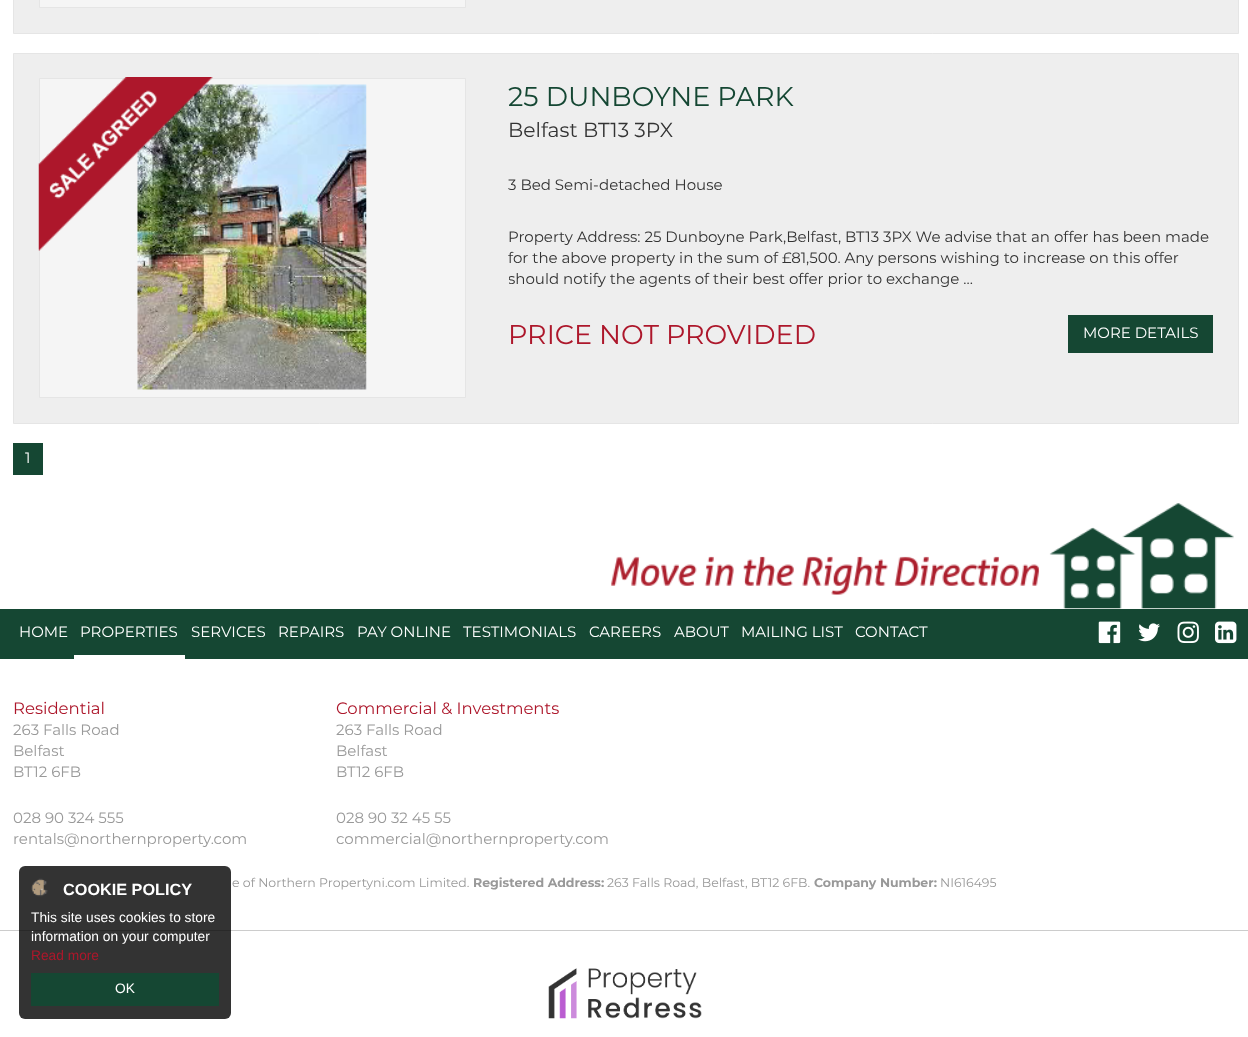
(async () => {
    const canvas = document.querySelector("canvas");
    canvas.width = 1248;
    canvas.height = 1037;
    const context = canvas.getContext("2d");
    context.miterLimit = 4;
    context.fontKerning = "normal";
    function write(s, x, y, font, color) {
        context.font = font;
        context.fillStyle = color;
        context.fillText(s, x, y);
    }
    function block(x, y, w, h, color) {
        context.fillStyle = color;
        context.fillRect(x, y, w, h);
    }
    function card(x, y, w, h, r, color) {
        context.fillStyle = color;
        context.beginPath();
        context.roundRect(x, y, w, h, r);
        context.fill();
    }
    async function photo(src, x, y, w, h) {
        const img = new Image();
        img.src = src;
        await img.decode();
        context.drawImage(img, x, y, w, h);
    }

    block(0, 0, 1248, 1037, "rgb(255, 255, 255)");
    context.fillStyle = "rgb(238, 238, 238)";
    context.beginPath();
    context.rect(13.5, -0.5, 1225, 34);
    context.fill();
    context.strokeStyle = "rgb(229, 229, 229)";
    context.stroke();
    context.fillStyle = "rgb(245, 245, 245)";
    context.beginPath();
    context.rect(39.5, -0.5, 426, 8);
    context.fill();
    context.stroke();
    context.fillStyle = "rgb(238, 238, 238)";
    context.beginPath();
    context.rect(13.5, 53.5, 1225, 370);
    context.fill();
    context.stroke();
    context.fillStyle = "rgb(245, 245, 245)";
    context.beginPath();
    context.rect(39.5, 78.5, 426, 319);
    context.fill();
    context.stroke();
    await photo("media/2.png", 137, 84, 230, 306);
    await photo("media/1.png", 38, 77, 175, 174);
    write("25 DUNBOYNE PARK", 508, 106, "27px Montserrat", "rgb(21, 71, 51)");
    write("Belfast BT13 3PX", 508, 137, "20.25px Montserrat", "rgb(51, 51, 51)");
    write("3 Bed Semi-detached House", 508, 190, "15px Montserrat", "rgb(51, 51, 51)");
    write("Property Address: 25 Dunboyne Park,Belfast, BT13 3PX We advise that an offer has been made", 508, 242, "15px Montserrat", "rgb(51, 51, 51)");
    write("for the above property in the sum of £81,500. Any persons wishing to increase on this offer", 508, 263, "15px Montserrat", "rgb(51, 51, 51)");
    context.save();
    context.beginPath();
    context.rect(509, 228, 704, 62);
    context.clip();
    write("should notify the agents of their best offer prior to exchange ...", 508, 284, "15px Montserrat", "rgb(51, 51, 51)");
    context.restore();
    write("PRICE NOT PROVIDED", 508, 344, "27px Montserrat", "rgb(173, 23, 43)");
    block(1068, 315, 145, 38, "rgb(21, 71, 51)");
    write("MORE DETAILS", 1083, 338, "15px Montserrat", "rgb(255, 255, 255)");
    block(13, 443, 30, 32, "rgb(21, 71, 51)");
    write("1", 25, 463, "15px Montserrat", "rgb(255, 255, 255)");
    await photo("media/3.png", 611, 503, 623, 106);
    block(0, 609, 1248, 50, "rgb(21, 71, 51)");
    write("HOME", 19, 637, "15px Montserrat", "rgb(255, 255, 255)");
    block(74, 655, 111, 4, "rgb(255, 255, 255)");
    write("PROPERTIES", 80, 637, "15px Montserrat", "rgb(255, 255, 255)");
    write("SERVICES", 191, 637, "15px Montserrat", "rgb(255, 255, 255)");
    write("REPAIRS", 278, 637, "15px Montserrat", "rgb(255, 255, 255)");
    write("PAY ONLINE", 357, 637, "15px Montserrat", "rgb(255, 255, 255)");
    write("TESTIMONIALS", 463, 637, "15px Montserrat", "rgb(255, 255, 255)");
    write("CAREERS", 589, 637, "15px Montserrat", "rgb(255, 255, 255)");
    write("ABOUT", 674, 637, "15px Montserrat", "rgb(255, 255, 255)");
    write("MAILING LIST", 741, 637, "15px Montserrat", "rgb(255, 255, 255)");
    write("CONTACT", 855, 637, "15px Montserrat", "rgb(255, 255, 255)");
    await photo("media/4.png", 1098, 621, 23, 23);
    await photo("media/5.png", 1138, 623, 22, 19);
    await photo("media/6.png", 1177, 621, 22, 22);
    await photo("media/7.png", 1215, 621, 22, 23);
    write("Residential", 13, 714, "16.5px Montserrat", "rgb(173, 23, 43)");
    write("263 Falls Road", 13, 735, "15px Montserrat", "rgb(153, 153, 153)");
    write("Belfast", 13, 756, "15px Montserrat", "rgb(153, 153, 153)");
    write("BT12 6FB", 13, 777, "15px Montserrat", "rgb(153, 153, 153)");
    write("028 90 324 555", 13, 823, "15px Montserrat", "rgb(153, 153, 153)");
    write("rentals@northernproperty.com", 13, 844, "15px Montserrat", "rgb(153, 153, 153)");
    write("Commercial & Investments", 336, 714, "16.5px Montserrat", "rgb(173, 23, 43)");
    write("263 Falls Road", 336, 735, "15px Montserrat", "rgb(153, 153, 153)");
    write("Belfast", 336, 756, "15px Montserrat", "rgb(153, 153, 153)");
    write("BT12 6FB", 336, 777, "15px Montserrat", "rgb(153, 153, 153)");
    write("028 90 32 45 55", 336, 823, "15px Montserrat", "rgb(153, 153, 153)");
    write("commercial@northernproperty.com", 336, 844, "15px Montserrat", "rgb(153, 153, 153)");
    write("e of Northern Propertyni.com Limited.", 232, 887, "12.5px Montserrat", "rgb(153, 153, 153)");
    write("Registered Address:", 473, 887, "bold 12.5px Montserrat", "rgb(153, 153, 153)");
    write("263 Falls Road, Belfast, BT12 6FB.", 607, 887, "12.5px Montserrat", "rgb(153, 153, 153)");
    write("Company Number:", 814, 887, "bold 12.5px Montserrat", "rgb(153, 153, 153)");
    write("NI616495", 940, 887, "12.5px Montserrat", "rgb(153, 153, 153)");
    block(0, 930, 1248, 1, "rgb(204, 204, 204)");
    card(19, 866, 212, 153, 6, "rgba(0, 0, 0, 0.8)");
    await photo("media/8.png", 31, 878, 17, 19);
    write("COOKIE POLICY", 63, 895, "bold 16.25px Liberation Sans", "rgb(255, 255, 255)");
    write("This site uses cookies to store", 31, 922, "13.75px Liberation Sans", "rgb(255, 255, 255)");
    write("information on your computer", 31, 941, "13.75px Liberation Sans", "rgb(255, 255, 255)");
    write("Read more", 31, 960, "13.75px Liberation Sans", "rgb(173, 23, 43)");
    block(31, 973, 188, 33, "rgb(21, 71, 51)");
    write("OK", 115, 993, "13.75px Liberation Sans", "rgb(255, 255, 255)");
    await photo("media/9.png", 548, 968, 154, 51);
})();
